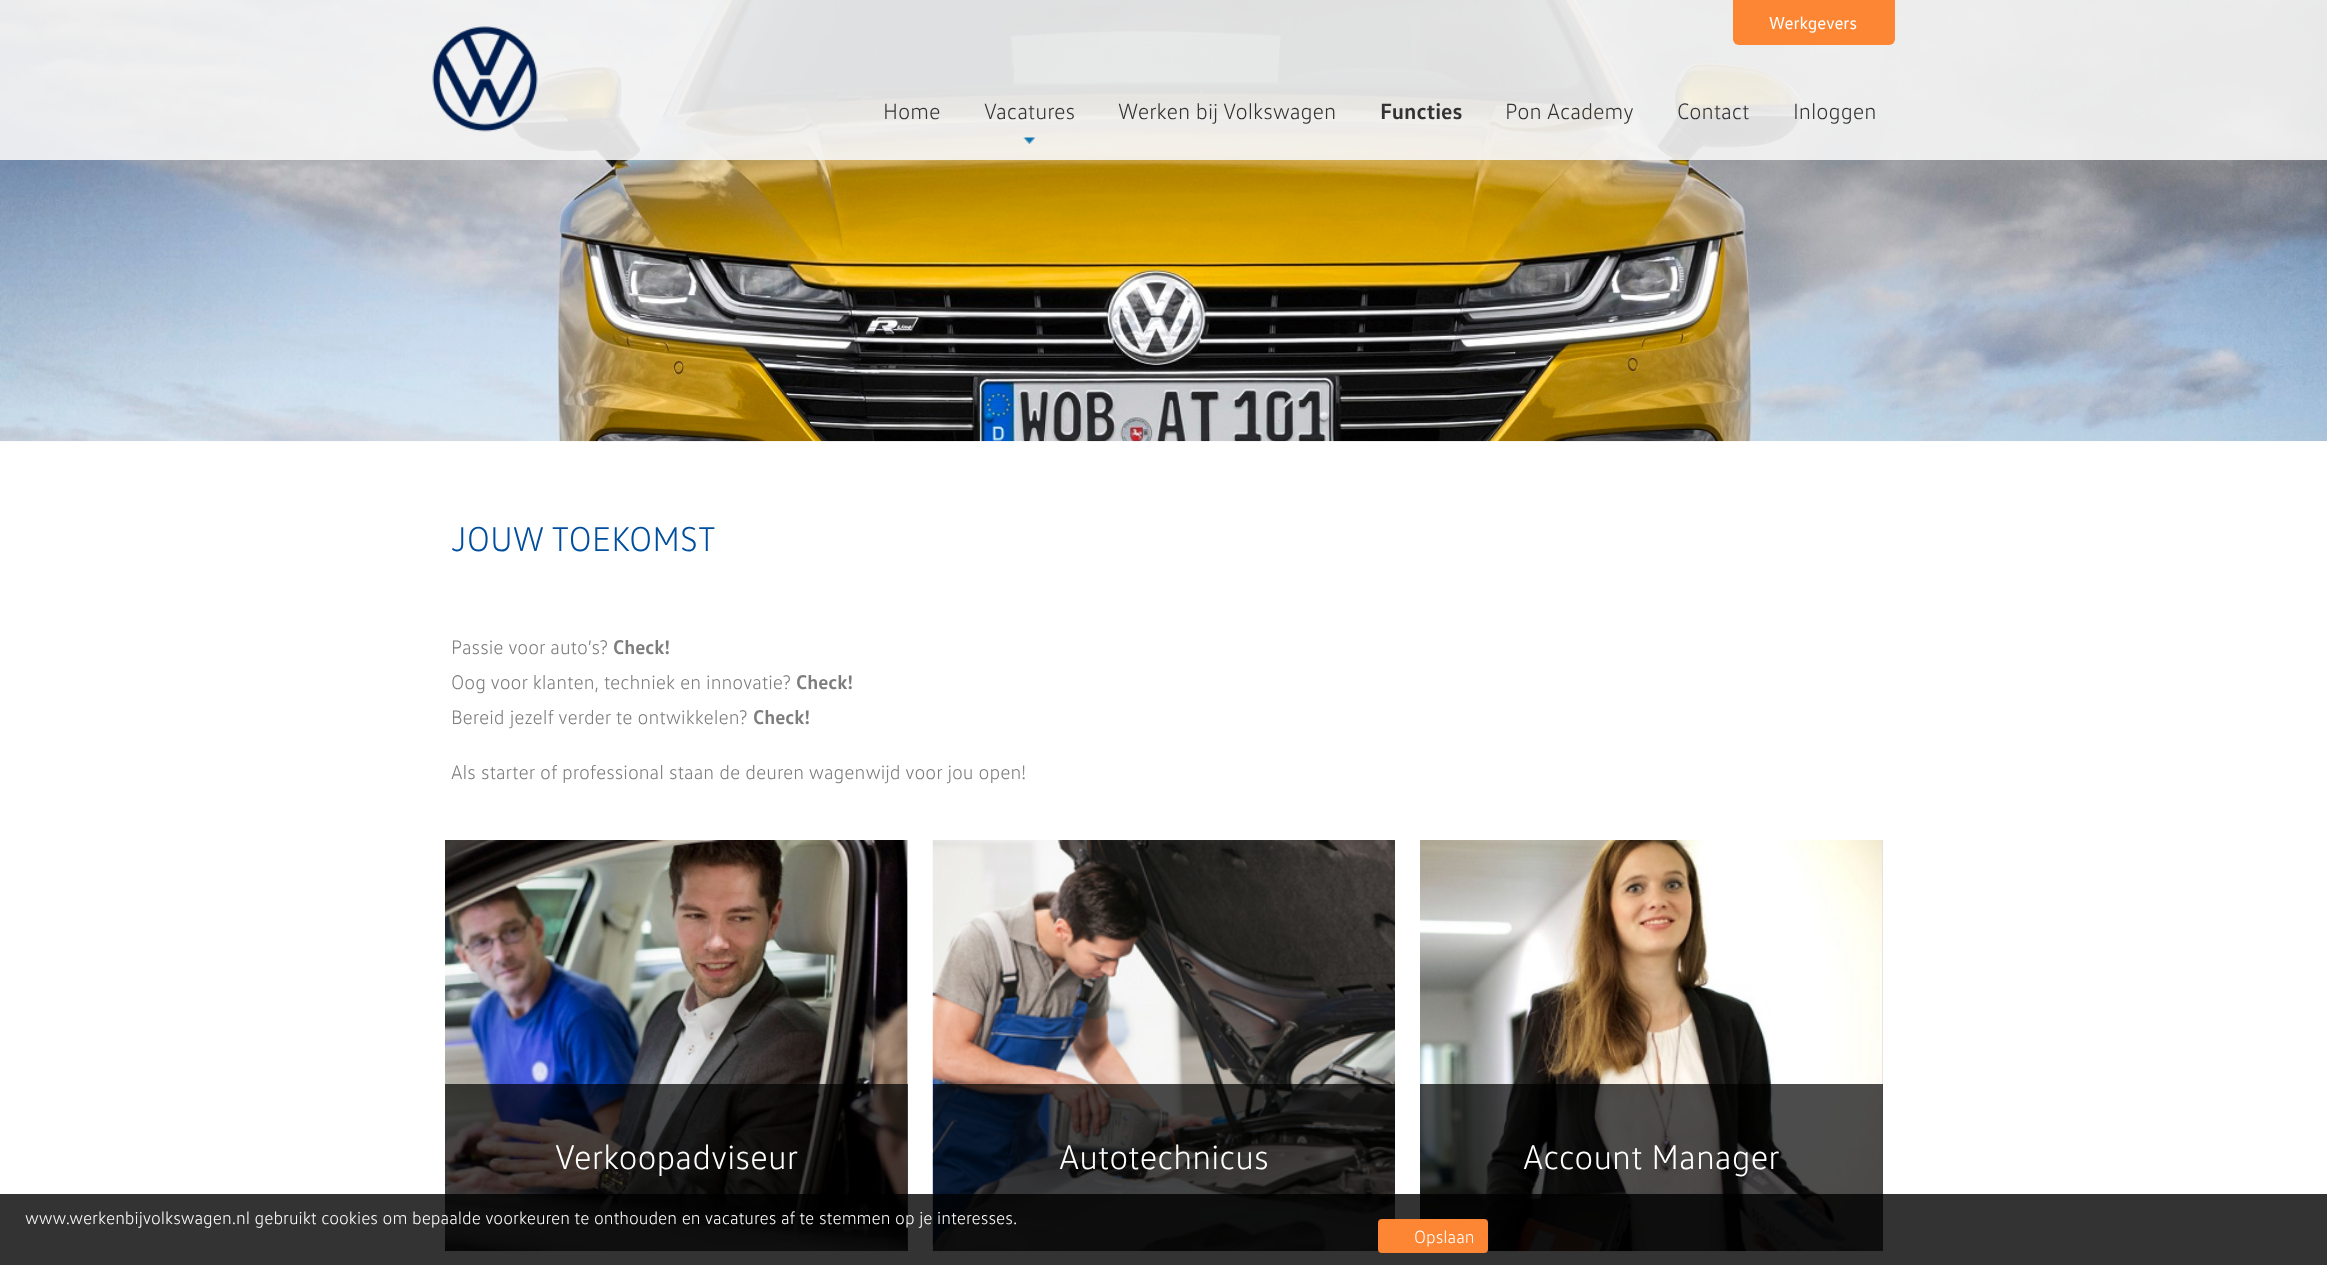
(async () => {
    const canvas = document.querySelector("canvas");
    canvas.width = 2327;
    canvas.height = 1265;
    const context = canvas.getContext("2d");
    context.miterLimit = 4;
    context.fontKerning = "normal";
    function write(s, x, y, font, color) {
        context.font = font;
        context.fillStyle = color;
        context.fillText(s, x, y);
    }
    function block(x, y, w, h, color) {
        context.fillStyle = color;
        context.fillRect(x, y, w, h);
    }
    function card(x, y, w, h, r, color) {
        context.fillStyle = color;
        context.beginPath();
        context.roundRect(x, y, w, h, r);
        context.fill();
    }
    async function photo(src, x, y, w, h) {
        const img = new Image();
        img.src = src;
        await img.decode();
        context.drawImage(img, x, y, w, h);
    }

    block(0, 0, 2327, 1265, "rgb(255, 255, 255)");
    await photo("media/1.png", 0, 0, 2327, 442);
    block(0, 0, 2327, 160, "rgba(246, 246, 246, 0.9)");
    await photo("media/2.png", 432, 26, 106, 106);
    context.fillStyle = "rgb(252, 134, 51)";
    context.beginPath();
    context.roundRect(1733, 0, 162, 45, [0, 0, 6, 6]);
    context.fill();
    write("Werkgevers", 1769, 29, "17.5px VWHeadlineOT", "rgb(255, 255, 255)");
    write("Home", 883, 119, "300 22.5px VWHeadlineOT", "rgb(51, 51, 51)");
    write("Vacatures", 984, 119, "300 22.5px VWHeadlineOT", "rgb(51, 51, 51)");
    await photo("media/3.png", 1023, 137, 12, 7);
    write("Werken bij Volkswagen", 1118, 119, "300 22.5px VWHeadlineOT", "rgb(51, 51, 51)");
    write("Functies", 1380, 119, "bold 22.5px VWHeadlineOT", "rgb(51, 51, 51)");
    write("Pon Academy", 1505, 119, "300 22.5px VWHeadlineOT", "rgb(51, 51, 51)");
    write("Contact", 1677, 119, "300 22.5px VWHeadlineOT", "rgb(51, 51, 51)");
    write("Inloggen", 1793, 119, "300 22.5px VWHeadlineOT", "rgb(51, 51, 51)");
    write("JOUW TOEKOMST", 451, 551, "300 35px VWHeadlineOT", "rgb(0, 79, 159)");
    write("Passie voor auto’s?", 451, 654, "300 20px VWHeadlineOT", "rgb(125, 125, 125)");
    write("Check!", 613, 654, "bold 20px VWHeadlineOT", "rgb(125, 125, 125)");
    write("Oog voor klanten, techniek en innovatie?", 451, 689, "300 20px VWHeadlineOT", "rgb(125, 125, 125)");
    write("Check!", 796, 689, "bold 20px VWHeadlineOT", "rgb(125, 125, 125)");
    write("Bereid jezelf verder te ontwikkelen?", 451, 724, "300 20px VWHeadlineOT", "rgb(125, 125, 125)");
    write("Check!", 753, 724, "bold 20px VWHeadlineOT", "rgb(125, 125, 125)");
    write("Als starter of professional staan de deuren wagenwijd voor jou open!", 451, 779, "300 20px VWHeadlineOT", "rgb(125, 125, 125)");
    block(907, 840, 1, 411, "rgb(222, 222, 222)");
    await photo("media/4.png", 445, 840, 463, 412);
    block(445, 1084, 463, 167, "rgba(0, 0, 0, 0.7)");
    write("Verkoopadviseur", 555, 1169, "300 35px VWHeadlineOT", "rgb(255, 255, 255)");
    await photo("media/5.png", 932, 840, 463, 412);
    block(933, 1084, 462, 167, "rgba(0, 0, 0, 0.7)");
    write("Autotechnicus", 1059, 1169, "300 35px VWHeadlineOT", "rgb(255, 255, 255)");
    block(1882, 840, 1, 411, "rgb(222, 222, 222)");
    await photo("media/6.png", 1420, 840, 463, 412);
    block(1420, 1084, 463, 167, "rgba(0, 0, 0, 0.7)");
    write("Account Manager", 1523, 1169, "300 35px VWHeadlineOT", "rgb(255, 255, 255)");
    block(0, 1194, 2327, 71, "rgba(0, 0, 0, 0.8)");
    write("www.werkenbijvolkswagen.nl gebruikt cookies om bepaalde voorkeuren te onthouden en vacatures af te stemmen op je interesses.", 25, 1224, "300 18px VWHeadlineOT", "rgb(255, 255, 255)");
    card(1378, 1219, 110, 34, 4, "rgb(252, 134, 51)");
    write("Opslaan", 1414, 1243, "300 18px VWHeadlineOT", "rgb(255, 255, 255)");
})();
